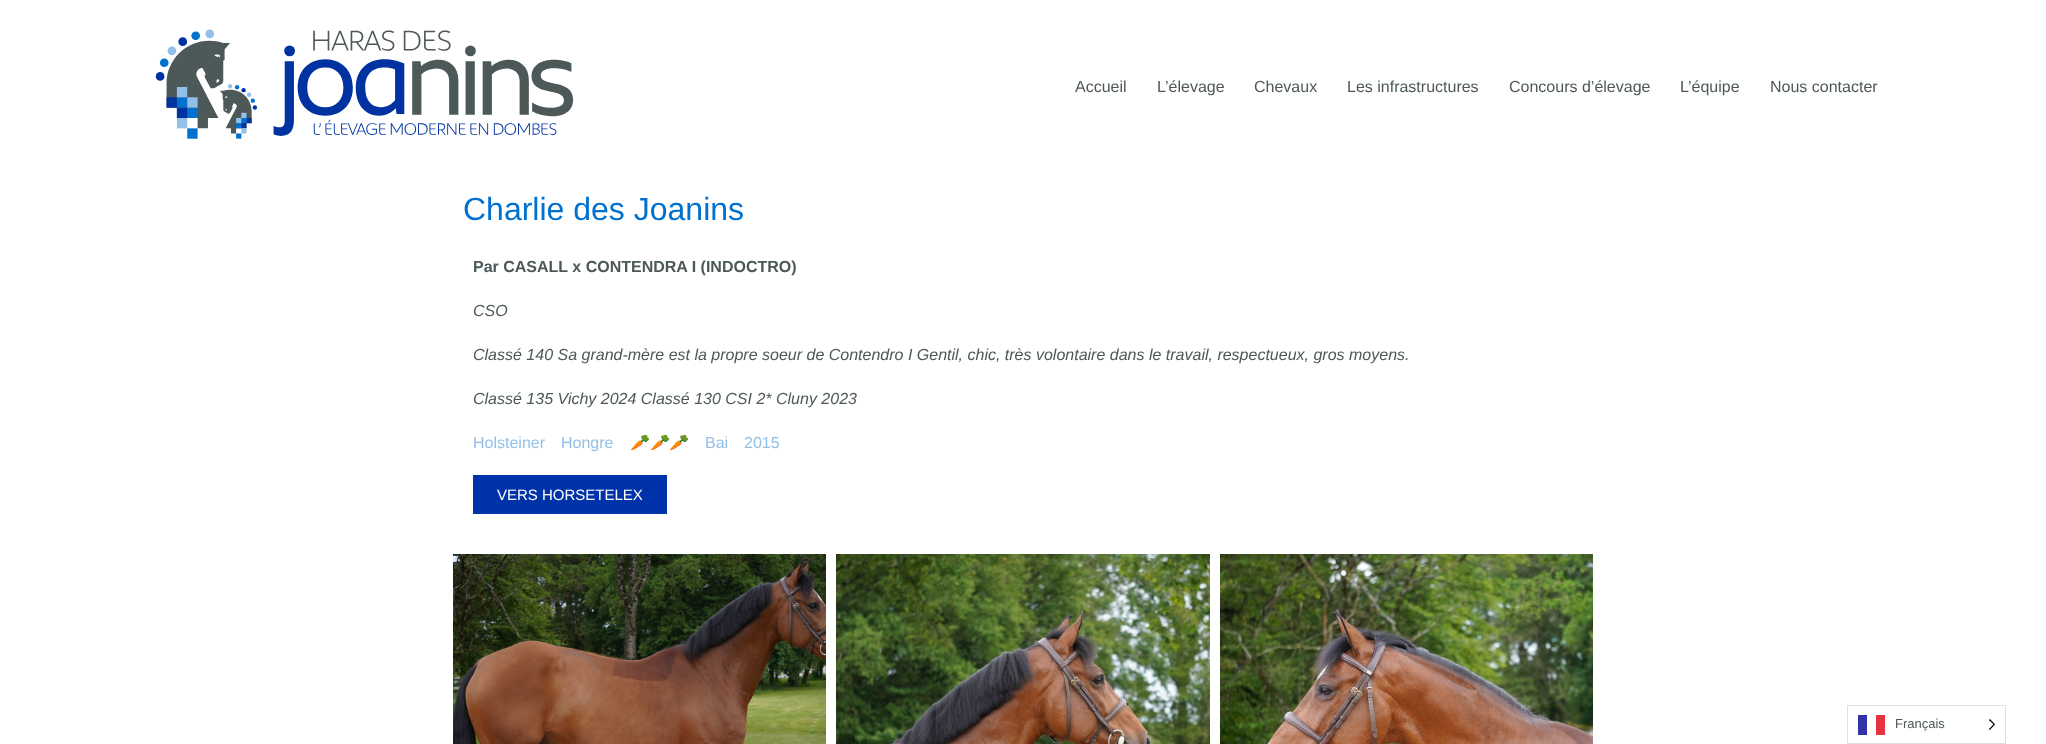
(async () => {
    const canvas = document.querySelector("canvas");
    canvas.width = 2046;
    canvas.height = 744;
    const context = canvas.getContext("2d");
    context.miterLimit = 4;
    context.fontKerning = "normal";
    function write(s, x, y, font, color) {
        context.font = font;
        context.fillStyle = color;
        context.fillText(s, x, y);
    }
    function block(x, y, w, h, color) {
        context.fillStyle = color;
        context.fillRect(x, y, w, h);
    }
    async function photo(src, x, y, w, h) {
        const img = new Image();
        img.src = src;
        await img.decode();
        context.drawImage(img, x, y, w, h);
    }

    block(0, 0, 2046, 744, "rgb(255, 255, 255)");
    await photo("media/1.png", 155, 29, 419, 110);
    write("Accueil", 1075, 92, "16px Liberation Sans", "rgb(77, 88, 88)");
    write("L’élevage", 1157, 92, "16px Liberation Sans", "rgb(77, 88, 88)");
    write("Chevaux", 1254, 92, "16px Liberation Sans", "rgb(77, 88, 88)");
    write("Les infrastructures", 1347, 92, "16px Liberation Sans", "rgb(77, 88, 88)");
    write("Concours d’élevage", 1509, 92, "16px Liberation Sans", "rgb(77, 88, 88)");
    write("L’équipe", 1680, 92, "16px Liberation Sans", "rgb(77, 88, 88)");
    write("Nous contacter", 1770, 92, "16px Liberation Sans", "rgb(77, 88, 88)");
    write("Charlie des Joanins", 463, 220, "32px Liberation Sans", "rgb(0, 113, 206)");
    write("Par CASALL x CONTENDRA I (INDOCTRO)", 473, 272, "bold 16px Liberation Sans", "rgb(77, 88, 88)");
    write("CSO", 473, 316, "italic 16px Liberation Sans", "rgb(77, 88, 88)");
    write("Classé 140 Sa grand-mère est la propre soeur de Contendro I Gentil, chic, très volontaire dans le travail, respectueux, gros moyens.", 473, 360, "italic 16px Liberation Sans", "rgb(77, 88, 88)");
    write("Classé 135 Vichy 2024 Classé 130 CSI 2* Cluny 2023", 473, 404, "italic 16px Liberation Sans", "rgb(77, 88, 88)");
    write("Holsteiner", 473, 448, "16px Liberation Sans", "rgb(146, 192, 233)");
    write("Hongre", 561, 448, "16px Liberation Sans", "rgb(146, 192, 233)");
    write("🥕🥕🥕", 630, 448, "16px Noto Color Emoji", "rgb(146, 192, 233)");
    write("Bai", 705, 448, "16px Liberation Sans", "rgb(146, 192, 233)");
    write("2015", 744, 448, "16px Liberation Sans", "rgb(146, 192, 233)");
    block(473, 475, 194, 39, "rgb(0, 51, 170)");
    write("VERS HORSETELEX", 497, 500, "15px Liberation Sans", "rgb(255, 255, 255)");
    await photo("media/2.png", 453, 554, 373, 190);
    await photo("media/3.png", 836, 554, 374, 190);
    await photo("media/4.png", 1220, 554, 373, 190);
    context.strokeStyle = "rgb(224, 224, 224)";
    context.strokeRect(1847.5, 705.5, 158, 38);
    block(1858, 715, 9, 20, "rgb(51, 51, 167)");
    block(1876, 715, 9, 20, "rgb(231, 51, 63)");
    write("Français", 1895, 728, "13px Liberation Sans", "rgb(77, 88, 88)");
    await photo("media/5.png", 1989, 719, 6, 11);
})();
